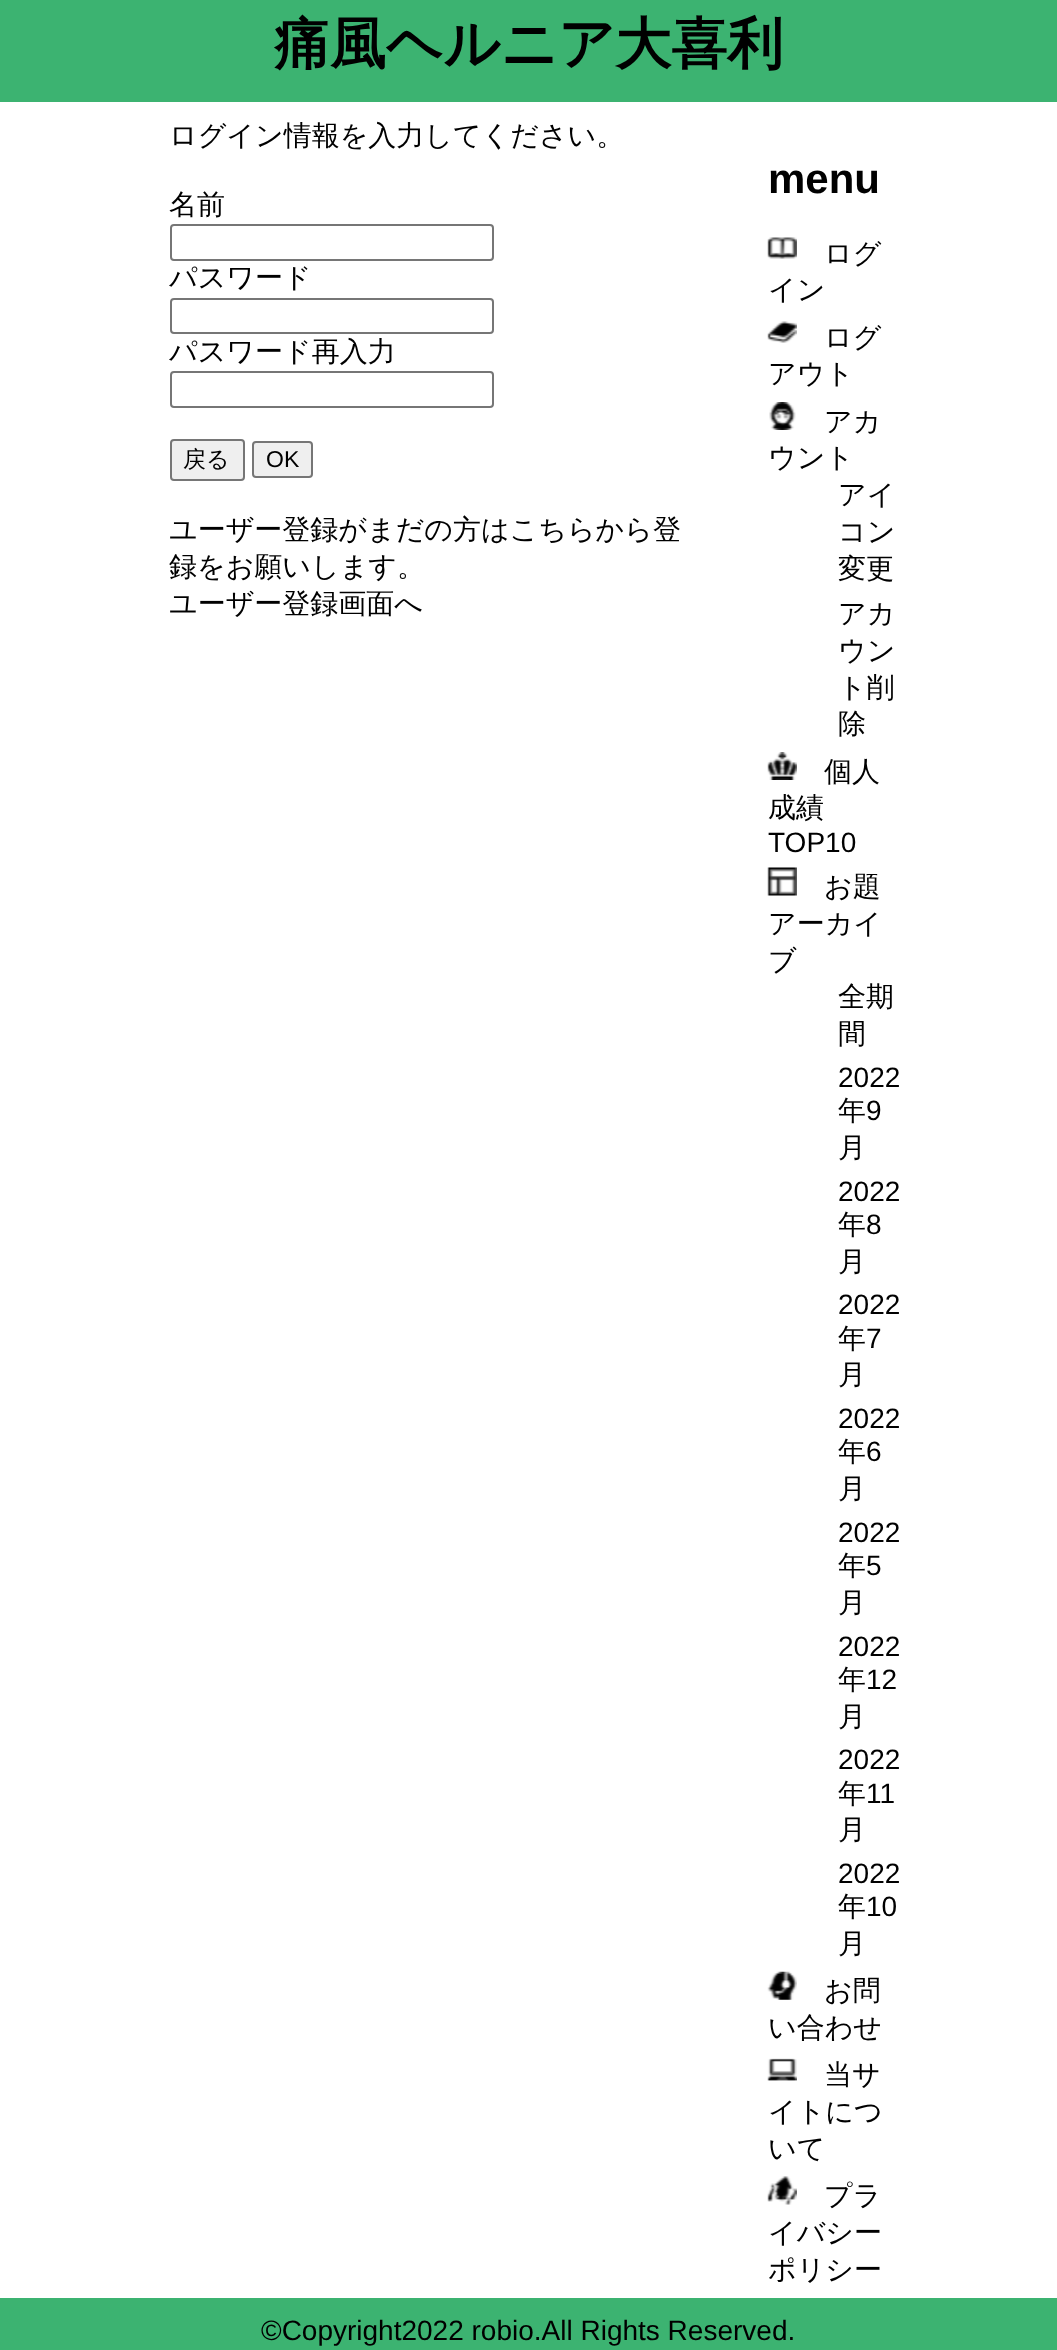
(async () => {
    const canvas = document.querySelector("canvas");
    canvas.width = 1057;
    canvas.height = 2350;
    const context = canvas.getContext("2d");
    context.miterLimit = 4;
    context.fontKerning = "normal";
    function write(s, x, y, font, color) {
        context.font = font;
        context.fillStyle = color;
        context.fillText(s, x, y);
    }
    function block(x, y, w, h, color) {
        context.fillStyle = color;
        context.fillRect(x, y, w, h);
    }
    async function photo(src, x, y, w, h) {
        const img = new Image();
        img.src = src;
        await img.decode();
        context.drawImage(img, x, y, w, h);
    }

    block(0, 0, 1057, 2350, "rgb(255, 255, 255)");
    block(0, 0, 1057, 102, "rgb(60, 179, 113)");
    write("痛風ヘルニア大喜利", 274, 63, "bold 56px WenQuanYi Zen Hei", "rgb(0, 0, 0)");
    write("ログイン情報を入力してください。", 169, 145, "500 28px WenQuanYi Zen Hei", "rgb(0, 0, 0)");
    write("名前", 169, 214, "500 28px WenQuanYi Zen Hei", "rgb(0, 0, 0)");
    context.beginPath();
    context.roundRect(171, 225, 322, 35, 3);
    context.strokeStyle = "rgb(118, 118, 118)";
    context.lineWidth = 2;
    context.stroke();
    write("パスワード", 169, 287, "500 28px WenQuanYi Zen Hei", "rgb(0, 0, 0)");
    context.beginPath();
    context.roundRect(171, 299, 322, 34, 3);
    context.stroke();
    write("パスワード再入力", 169, 361, "500 28px WenQuanYi Zen Hei", "rgb(0, 0, 0)");
    context.beginPath();
    context.roundRect(171, 372, 322, 35, 3);
    context.stroke();
    context.fillStyle = "rgb(239, 239, 239)";
    context.beginPath();
    context.roundRect(171, 440, 73, 40, 3);
    context.fill();
    context.stroke();
    write("戻る", 183, 467, "500 23px WenQuanYi Zen Hei", "rgb(0, 0, 0)");
    context.fillStyle = "rgb(239, 239, 239)";
    context.beginPath();
    context.roundRect(253, 442, 59, 35, 3);
    context.fill();
    context.stroke();
    write("OK", 266, 467, "23px Liberation Sans", "rgb(0, 0, 0)");
    write("ユーザー登録がまだの方はこちらから登", 169, 539, "500 28px WenQuanYi Zen Hei", "rgb(0, 0, 0)");
    write("録をお願いします。", 169, 576, "500 28px WenQuanYi Zen Hei", "rgb(0, 0, 0)");
    write("ユーザー登録画面へ", 169, 613, "500 28px WenQuanYi Zen Hei", "rgb(0, 0, 0)");
    write("menu", 768, 193, "bold 42px Liberation Sans", "rgb(0, 0, 0)");
    await photo("media/1.png", 767, 237, 30, 22);
    write("ログ", 824, 263, "500 28px WenQuanYi Zen Hei", "rgb(0, 0, 0)");
    write("イン", 768, 299, "500 28px WenQuanYi Zen Hei", "rgb(0, 0, 0)");
    await photo("media/2.png", 767, 321, 30, 22);
    write("ログ", 824, 347, "500 28px WenQuanYi Zen Hei", "rgb(0, 0, 0)");
    write("アウト", 768, 383, "500 28px WenQuanYi Zen Hei", "rgb(0, 0, 0)");
    await photo("media/3.png", 769, 402, 27, 28);
    write("アカ", 824, 431, "500 28px WenQuanYi Zen Hei", "rgb(0, 0, 0)");
    write("ウント", 768, 467, "500 28px WenQuanYi Zen Hei", "rgb(0, 0, 0)");
    write("アイ", 838, 504, "500 28px WenQuanYi Zen Hei", "rgb(0, 0, 0)");
    write("コン", 838, 541, "500 28px WenQuanYi Zen Hei", "rgb(0, 0, 0)");
    write("変更", 838, 578, "500 28px WenQuanYi Zen Hei", "rgb(0, 0, 0)");
    write("アカ", 838, 623, "500 28px WenQuanYi Zen Hei", "rgb(0, 0, 0)");
    write("ウン", 838, 660, "500 28px WenQuanYi Zen Hei", "rgb(0, 0, 0)");
    write("ト削", 838, 697, "500 28px WenQuanYi Zen Hei", "rgb(0, 0, 0)");
    write("除", 838, 733, "500 28px WenQuanYi Zen Hei", "rgb(0, 0, 0)");
    await photo("media/4.png", 767, 752, 30, 28);
    write("個人", 824, 781, "500 28px WenQuanYi Zen Hei", "rgb(0, 0, 0)");
    write("成績", 768, 817, "500 28px WenQuanYi Zen Hei", "rgb(0, 0, 0)");
    write("TOP10", 768, 852, "28px Liberation Sans", "rgb(0, 0, 0)");
    await photo("media/5.png", 767, 867, 30, 29);
    write("お題", 824, 896, "500 28px WenQuanYi Zen Hei", "rgb(0, 0, 0)");
    write("アーカイ", 768, 933, "500 28px WenQuanYi Zen Hei", "rgb(0, 0, 0)");
    write("ブ", 768, 970, "500 28px WenQuanYi Zen Hei", "rgb(0, 0, 0)");
    write("全期", 838, 1006, "500 28px WenQuanYi Zen Hei", "rgb(0, 0, 0)");
    write("間", 838, 1043, "500 28px WenQuanYi Zen Hei", "rgb(0, 0, 0)");
    write("2022", 838, 1087, "28px Liberation Sans", "rgb(0, 0, 0)");
    write("年", 838, 1120, "500 28px WenQuanYi Zen Hei", "rgb(0, 0, 0)");
    write("9", 866, 1120, "28px Liberation Sans", "rgb(0, 0, 0)");
    write("月", 838, 1157, "500 28px WenQuanYi Zen Hei", "rgb(0, 0, 0)");
    write("2022", 838, 1201, "28px Liberation Sans", "rgb(0, 0, 0)");
    write("年", 838, 1234, "500 28px WenQuanYi Zen Hei", "rgb(0, 0, 0)");
    write("8", 866, 1234, "28px Liberation Sans", "rgb(0, 0, 0)");
    write("月", 838, 1271, "500 28px WenQuanYi Zen Hei", "rgb(0, 0, 0)");
    write("2022", 838, 1314, "28px Liberation Sans", "rgb(0, 0, 0)");
    write("年", 838, 1348, "500 28px WenQuanYi Zen Hei", "rgb(0, 0, 0)");
    write("7", 866, 1348, "28px Liberation Sans", "rgb(0, 0, 0)");
    write("月", 838, 1384, "500 28px WenQuanYi Zen Hei", "rgb(0, 0, 0)");
    write("2022", 838, 1428, "28px Liberation Sans", "rgb(0, 0, 0)");
    write("年", 838, 1461, "500 28px WenQuanYi Zen Hei", "rgb(0, 0, 0)");
    write("6", 866, 1461, "28px Liberation Sans", "rgb(0, 0, 0)");
    write("月", 838, 1498, "500 28px WenQuanYi Zen Hei", "rgb(0, 0, 0)");
    write("2022", 838, 1542, "28px Liberation Sans", "rgb(0, 0, 0)");
    write("年", 838, 1575, "500 28px WenQuanYi Zen Hei", "rgb(0, 0, 0)");
    write("5", 866, 1575, "28px Liberation Sans", "rgb(0, 0, 0)");
    write("月", 838, 1612, "500 28px WenQuanYi Zen Hei", "rgb(0, 0, 0)");
    write("2022", 838, 1656, "28px Liberation Sans", "rgb(0, 0, 0)");
    write("年", 838, 1689, "500 28px WenQuanYi Zen Hei", "rgb(0, 0, 0)");
    write("12", 866, 1689, "28px Liberation Sans", "rgb(0, 0, 0)");
    write("月", 838, 1726, "500 28px WenQuanYi Zen Hei", "rgb(0, 0, 0)");
    write("2022", 838, 1769, "28px Liberation Sans", "rgb(0, 0, 0)");
    write("年", 838, 1803, "500 28px WenQuanYi Zen Hei", "rgb(0, 0, 0)");
    write("11", 866, 1803, "28px Liberation Sans", "rgb(0, 0, 0)");
    write("月", 838, 1839, "500 28px WenQuanYi Zen Hei", "rgb(0, 0, 0)");
    write("2022", 838, 1883, "28px Liberation Sans", "rgb(0, 0, 0)");
    write("年", 838, 1916, "500 28px WenQuanYi Zen Hei", "rgb(0, 0, 0)");
    write("10", 866, 1916, "28px Liberation Sans", "rgb(0, 0, 0)");
    write("月", 838, 1953, "500 28px WenQuanYi Zen Hei", "rgb(0, 0, 0)");
    await photo("media/6.png", 767, 1971, 30, 29);
    write("お問", 824, 2000, "500 28px WenQuanYi Zen Hei", "rgb(0, 0, 0)");
    write("い合わせ", 768, 2037, "500 28px WenQuanYi Zen Hei", "rgb(0, 0, 0)");
    await photo("media/7.png", 767, 2058, 30, 23);
    write("当サ", 824, 2084, "500 28px WenQuanYi Zen Hei", "rgb(0, 0, 0)");
    write("イトにつ", 768, 2121, "500 28px WenQuanYi Zen Hei", "rgb(0, 0, 0)");
    write("いて", 768, 2158, "500 28px WenQuanYi Zen Hei", "rgb(0, 0, 0)");
    await photo("media/8.png", 767, 2176, 30, 29);
    write("プラ", 824, 2205, "500 28px WenQuanYi Zen Hei", "rgb(0, 0, 0)");
    write("イバシー", 768, 2242, "500 28px WenQuanYi Zen Hei", "rgb(0, 0, 0)");
    write("ポリシー", 768, 2279, "500 28px WenQuanYi Zen Hei", "rgb(0, 0, 0)");
    block(0, 2298, 1057, 52, "rgb(60, 179, 113)");
    write("©Copyright2022 robio.All Rights Reserved.", 261, 2340, "28px Liberation Sans", "rgb(0, 0, 0)");
})();
